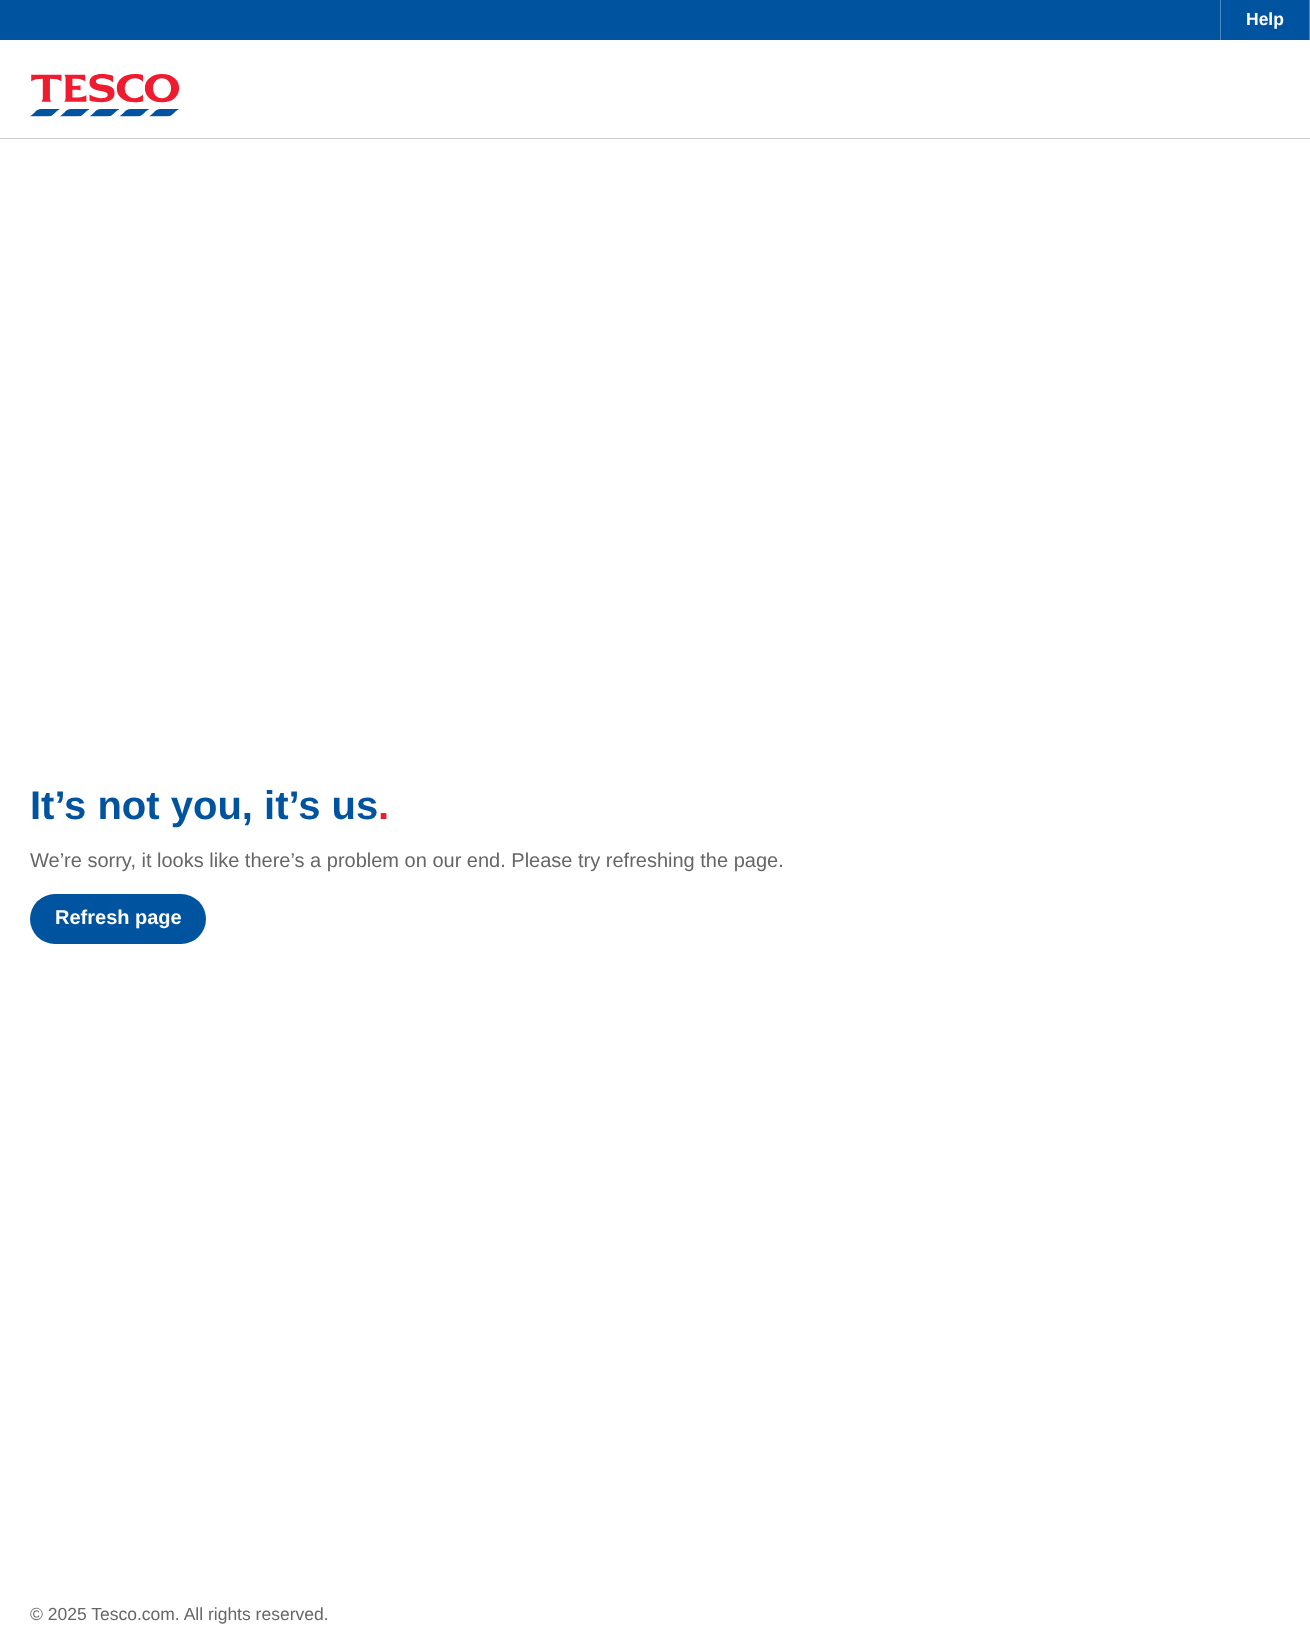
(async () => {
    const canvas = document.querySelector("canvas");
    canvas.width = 1310;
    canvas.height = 1640;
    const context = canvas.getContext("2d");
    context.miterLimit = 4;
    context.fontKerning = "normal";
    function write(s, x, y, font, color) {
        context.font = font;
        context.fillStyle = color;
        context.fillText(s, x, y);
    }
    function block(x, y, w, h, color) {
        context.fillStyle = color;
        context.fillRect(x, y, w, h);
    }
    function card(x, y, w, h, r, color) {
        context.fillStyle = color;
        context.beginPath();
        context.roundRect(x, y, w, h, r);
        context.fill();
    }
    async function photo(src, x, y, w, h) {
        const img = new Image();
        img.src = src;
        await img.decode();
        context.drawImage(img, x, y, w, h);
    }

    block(0, 0, 1310, 1640, "rgb(255, 255, 255)");
    block(0, 0, 1309, 40, "rgb(0, 83, 159)");
    block(1309, 0, 1, 40, "rgb(77, 135, 188)");
    block(1220, 0, 1, 40, "rgb(77, 135, 188)");
    write("Help", 1246, 25, "bold 17.5px Liberation Sans", "rgb(255, 255, 255)");
    await photo("media/1.png", 30, 74, 150, 43);
    block(0, 138, 1310, 1, "rgb(204, 204, 204)");
    write("It’s not you, it’s us", 30, 819, "bold 40px Liberation Sans", "rgb(0, 83, 159)");
    write(".", 378, 819, "bold 40px Liberation Sans", "rgb(238, 28, 46)");
    write("We’re sorry, it looks like there’s a problem on our end. Please try refreshing the page.", 30, 867, "20px Liberation Sans", "rgb(102, 102, 102)");
    card(30, 894, 176, 50, 25, "rgb(0, 83, 159)");
    write("Refresh page", 55, 924, "bold 20px Liberation Sans", "rgb(255, 255, 255)");
    write("© 2025 Tesco.com. All rights reserved.", 30, 1620, "17.5px Liberation Sans", "rgb(102, 102, 102)");
})();
